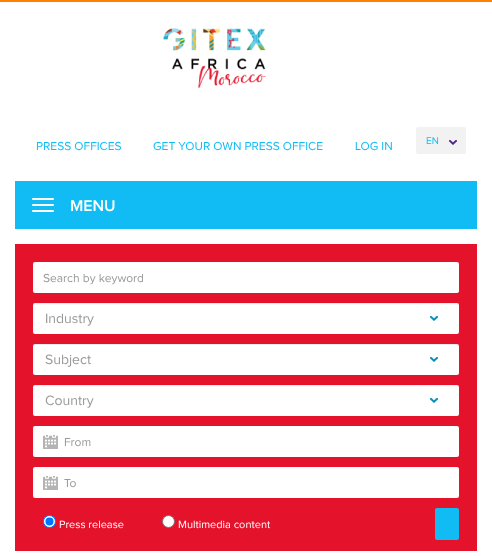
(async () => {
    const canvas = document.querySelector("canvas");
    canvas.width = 492;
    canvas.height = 556;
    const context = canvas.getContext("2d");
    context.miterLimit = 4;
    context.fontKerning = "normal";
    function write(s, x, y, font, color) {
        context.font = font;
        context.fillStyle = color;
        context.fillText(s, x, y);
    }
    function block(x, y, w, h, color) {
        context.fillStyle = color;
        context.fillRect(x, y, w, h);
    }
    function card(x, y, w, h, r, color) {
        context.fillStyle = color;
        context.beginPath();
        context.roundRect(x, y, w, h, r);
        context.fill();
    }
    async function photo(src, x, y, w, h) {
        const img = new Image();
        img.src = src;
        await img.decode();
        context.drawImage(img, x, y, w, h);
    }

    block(0, 0, 492, 556, "rgb(255, 255, 255)");
    block(0, 0, 492, 2, "rgb(254, 129, 0)");
    await photo("media/1.png", 163, 28, 103, 61);
    write("PRESS OFFICES", 36, 150, "12px Proxima Nova", "rgb(17, 188, 245)");
    write("GET YOUR OWN PRESS OFFICE", 153, 150, "12px Proxima Nova", "rgb(17, 188, 245)");
    write("LOG IN", 355, 150, "12px Proxima Nova", "rgb(17, 188, 245)");
    card(416, 127, 50, 27, 2, "rgb(242, 242, 242)");
    write("EN", 426, 144, "10px Proxima Nova", "rgb(17, 188, 245)");
    await photo("media/2.png", 449, 140, 8, 5);
    block(15, 181, 462, 48, "rgb(17, 188, 245)");
    card(32, 198, 22, 2, 1, "rgb(255, 255, 255)");
    card(32, 204, 22, 2, 1, "rgb(255, 255, 255)");
    write("MENU", 70, 211, "600 16px Proxima Nova", "rgb(255, 255, 255)");
    card(32, 210, 22, 2, 1, "rgb(255, 255, 255)");
    block(15, 244, 462, 307, "rgb(228, 18, 43)");
    card(33, 262, 426, 31, 2, "rgb(255, 255, 255)");
    write("Search by keyword", 43, 282, "12px Proxima Nova", "rgb(153, 153, 153)");
    card(33, 303, 426, 31, 2, "rgb(255, 255, 255)");
    context.fillStyle = "rgba(0, 0, 0, 0.07)";
    context.beginPath();
    context.moveTo(35, 304);
    context.lineTo(457, 304);
    context.bezierCurveTo(458, 304, 459, 305, 459, 306);
    context.bezierCurveTo(459, 305, 459, 303, 457, 303);
    context.lineTo(35, 303);
    context.lineTo(33, 304);
    context.lineTo(33, 306);
    context.bezierCurveTo(33, 305, 34, 304, 35, 304);
    context.closePath();
    context.fill();
    write("Industry", 45, 323, "14px Proxima Nova", "rgb(153, 153, 153)");
    await photo("media/3.png", 430, 316, 8, 5);
    card(33, 344, 426, 31, 2, "rgb(255, 255, 255)");
    context.fillStyle = "rgba(0, 0, 0, 0.07)";
    context.beginPath();
    context.moveTo(35, 345);
    context.lineTo(457, 345);
    context.bezierCurveTo(458, 345, 459, 346, 459, 347);
    context.bezierCurveTo(459, 346, 459, 344, 457, 344);
    context.lineTo(35, 344);
    context.lineTo(33, 345);
    context.lineTo(33, 347);
    context.bezierCurveTo(33, 346, 34, 345, 35, 345);
    context.closePath();
    context.fill();
    write("Subject", 45, 364, "14px Proxima Nova", "rgb(153, 153, 153)");
    await photo("media/3.png", 430, 357, 8, 5);
    card(33, 385, 426, 31, 2, "rgb(255, 255, 255)");
    context.fillStyle = "rgba(0, 0, 0, 0.07)";
    context.beginPath();
    context.moveTo(35, 386);
    context.lineTo(457, 386);
    context.bezierCurveTo(458, 386, 459, 387, 459, 388);
    context.bezierCurveTo(459, 387, 459, 385, 457, 385);
    context.lineTo(35, 385);
    context.lineTo(33, 386);
    context.lineTo(33, 388);
    context.bezierCurveTo(33, 387, 34, 386, 35, 386);
    context.closePath();
    context.fill();
    write("Country", 45, 405, "14px Proxima Nova", "rgb(153, 153, 153)");
    await photo("media/3.png", 430, 398, 8, 5);
    card(33, 426, 426, 31, 2, "rgb(255, 255, 255)");
    await photo("media/4.png", 43, 435, 15, 14);
    write("From", 64, 446, "12px Proxima Nova", "rgb(153, 153, 153)");
    card(33, 467, 426, 31, 2, "rgb(255, 255, 255)");
    await photo("media/4.png", 43, 476, 15, 14);
    write("To", 64, 487, "12px Proxima Nova", "rgb(153, 153, 153)");
    context.fillStyle = "rgb(255, 255, 255)";
    context.beginPath();
    context.arc(49.5, 521.5, 6, 0, Math.PI * 2);
    context.fill();
    context.strokeStyle = "rgb(0, 117, 255)";
    context.stroke();
    context.fillStyle = "rgb(0, 117, 255)";
    context.beginPath();
    context.arc(49.5, 521.5, 4, 0, Math.PI * 2);
    context.fill();
    write("Press release", 59, 528, "11px Proxima Nova", "rgb(255, 255, 255)");
    context.beginPath();
    context.arc(168.5, 521.5, 6, 0, Math.PI * 2);
    context.fill();
    context.strokeStyle = "rgb(118, 118, 118)";
    context.stroke();
    write("Multimedia content", 178, 528, "11px Proxima Nova", "rgb(255, 255, 255)");
    card(435, 508, 24, 32, 2, "rgb(17, 188, 245)");
})();
